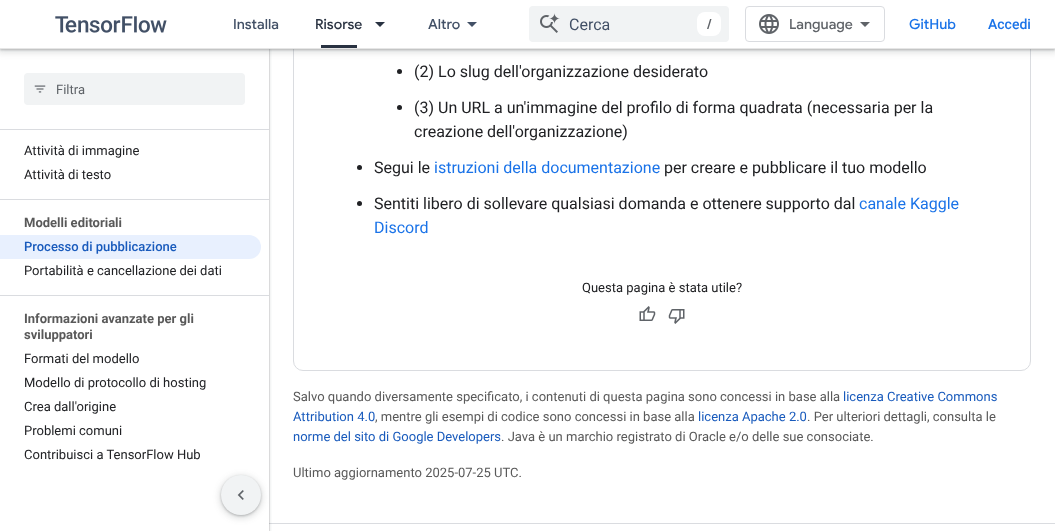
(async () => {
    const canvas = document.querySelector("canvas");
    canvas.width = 1055;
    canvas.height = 531;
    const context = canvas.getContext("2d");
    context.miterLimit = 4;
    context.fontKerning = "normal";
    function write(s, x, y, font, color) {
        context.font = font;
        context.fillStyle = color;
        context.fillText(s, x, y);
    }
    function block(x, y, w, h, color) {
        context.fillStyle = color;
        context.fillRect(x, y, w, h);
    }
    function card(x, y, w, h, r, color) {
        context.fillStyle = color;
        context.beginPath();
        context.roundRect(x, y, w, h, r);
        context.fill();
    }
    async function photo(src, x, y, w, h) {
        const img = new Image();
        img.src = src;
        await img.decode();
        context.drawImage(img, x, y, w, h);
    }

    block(0, 0, 1055, 531, "rgb(255, 255, 255)");
    block(269, 523, 786, 1, "rgb(218, 220, 224)");
    context.save();
    context.beginPath();
    context.rect(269, 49, 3, 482);
    context.clip();
    context.fillStyle = "rgba(60, 64, 67, 0.15)";
    context.filter = "blur(1.5px)";
    context.beginPath();
    context.rect(-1, 0, 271, 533);
    context.fill();
    context.filter = "none";
    context.restore();
    context.save();
    context.beginPath();
    context.rect(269, 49, 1, 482);
    context.clip();
    context.fillStyle = "rgba(60, 64, 67, 0.3)";
    context.filter = "blur(1px)";
    context.beginPath();
    context.rect(0, 1, 269, 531);
    context.fill();
    context.filter = "none";
    context.restore();
    context.beginPath();
    context.roundRect(293.5, -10.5, 737, 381, 9.5);
    context.strokeStyle = "rgb(218, 220, 224)";
    context.stroke();
    context.fillStyle = "rgba(60, 64, 67, 0.15)";
    context.filter = "blur(3px)";
    context.beginPath();
    context.rect(-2, -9, 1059, 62);
    context.fill();
    context.filter = "none";
    context.fillStyle = "rgba(60, 64, 67, 0.3)";
    context.filter = "blur(1px)";
    context.beginPath();
    context.rect(0, -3, 1055, 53);
    context.fill();
    context.filter = "none";
    block(0, 0, 1055, 48, "rgb(255, 255, 255)");
    block(0, 48, 1055, 1, "rgb(230, 230, 230)");
    await photo("media/1.png", 55, 16, 112, 17);
    write("Installa", 233, 29, "500 14px Google Sans", "rgb(66, 80, 102)");
    write("Risorse", 315, 29, "500 14px Google Sans", "rgb(41, 50, 65)");
    block(321, 45, 36, 3, "rgb(41, 50, 65)");
    context.beginPath();
    context.moveTo(375, 22);
    context.lineTo(385, 22);
    context.lineTo(380, 27);
    context.closePath();
    context.fill();
    write("Altro", 428, 29, "500 14px Google Sans", "rgb(66, 80, 102)");
    context.beginPath();
    context.moveTo(467, 22);
    context.lineTo(477, 22);
    context.lineTo(472, 27);
    context.closePath();
    context.fill();
    card(529, 6, 200, 36, 4, "rgb(241, 243, 244)");
    await photo("media/2.png", 540, 13, 20, 20);
    write("Cerca", 569, 30, "16px Roboto", "rgb(66, 80, 102)");
    card(697, 12, 24, 24, 8, "rgb(255, 255, 255)");
    write("/", 707, 29, "500 14px Google Sans", "rgb(95, 99, 104)");
    context.beginPath();
    context.roundRect(745.5, 6.5, 139, 35, 3.5);
    context.stroke();
    await photo("media/3.png", 759, 14, 20, 20);
    write("Language", 789, 29, "500 14px Google Sans", "rgb(95, 99, 104)");
    context.beginPath();
    context.moveTo(865, 27);
    context.lineTo(860, 22);
    context.lineTo(870, 22);
    context.closePath();
    context.fill();
    write("GitHub", 909, 29, "500 14px Google Sans", "rgb(26, 115, 232)");
    write("Accedi", 988, 29, "500 14px Roboto", "rgb(26, 115, 232)");
    block(0, 129, 269, 1, "rgb(218, 220, 224)");
    card(24, 73, 221, 32, 4, "rgb(241, 243, 244)");
    await photo("media/4.png", 34, 85, 12, 8);
    write("Filtra", 56, 94, "13px Roboto", "rgb(95, 99, 104)");
    write("Attività di immagine", 24, 155, "13px Roboto", "rgb(32, 33, 36)");
    write("Attività di testo", 24, 179, "13px Roboto", "rgb(32, 33, 36)");
    block(0, 199, 269, 1, "rgb(218, 220, 224)");
    write("Modelli editoriali", 24, 227, "bold 13px Roboto", "rgb(89, 89, 89)");
    context.fillStyle = "rgb(232, 240, 254)";
    context.beginPath();
    context.roundRect(0, 235, 261, 24, [0, 12, 12, 0]);
    context.fill();
    write("Processo di pubblicazione", 24, 251, "500 13px Roboto", "rgb(24, 90, 188)");
    write("Portabilità e cancellazione dei dati", 24, 275, "13px Roboto", "rgb(32, 33, 36)");
    block(0, 295, 269, 1, "rgb(218, 220, 224)");
    write("Informazioni avanzate per gli", 24, 323, "bold 13px Roboto", "rgb(89, 89, 89)");
    write("sviluppatori", 24, 339, "bold 13px Roboto", "rgb(89, 89, 89)");
    write("Formati del modello", 24, 363, "13px Roboto", "rgb(32, 33, 36)");
    write("Modello di protocollo di hosting", 24, 387, "13px Roboto", "rgb(32, 33, 36)");
    write("Crea dall'origine", 24, 411, "13px Roboto", "rgb(32, 33, 36)");
    write("Problemi comuni", 24, 435, "13px Roboto", "rgb(32, 33, 36)");
    write("Contribuisci a TensorFlow Hub", 24, 459, "13px Roboto", "rgb(32, 33, 36)");
    context.beginPath();
    context.arc(399.5, 71.5, 2.5, 0, Math.PI * 2);
    context.fill();
    write("(2) Lo slug dell'organizzazione desiderato", 414, 77, "16px Roboto", "rgb(32, 33, 36)");
    context.beginPath();
    context.arc(399.5, 107.5, 2.5, 0, Math.PI * 2);
    context.fill();
    write("(3) Un URL a un'immagine del profilo di forma quadrata (necessaria per la", 414, 113, "16px Roboto", "rgb(32, 33, 36)");
    write("creazione dell'organizzazione)", 414, 137, "16px Roboto", "rgb(32, 33, 36)");
    context.beginPath();
    context.arc(359.5, 167.5, 2.5, 0, Math.PI * 2);
    context.fill();
    write("Segui le", 374, 173, "16px Roboto", "rgb(32, 33, 36)");
    write("istruzioni della documentazione", 434, 173, "16px Roboto", "rgb(26, 115, 232)");
    write("per creare e pubblicare il tuo modello", 664, 173, "16px Roboto", "rgb(32, 33, 36)");
    context.beginPath();
    context.arc(359.5, 203.5, 2.5, 0, Math.PI * 2);
    context.fill();
    write("Sentiti libero di sollevare qualsiasi domanda e ottenere supporto dal", 374, 209, "16px Roboto", "rgb(32, 33, 36)");
    write("canale Kaggle", 859, 209, "16px Roboto", "rgb(26, 115, 232)");
    write("Discord", 374, 233, "16px Roboto", "rgb(26, 115, 232)");
    write("Questa pagina è stata utile?", 582, 292, "13px Roboto", "rgb(32, 33, 36)");
    await photo("media/5.png", 639, 306, 17, 15);
    await photo("media/6.png", 668, 309, 17, 15);
    write("Salvo quando diversamente specificato, i contenuti di questa pagina sono concessi in base alla", 293, 401, "13px Roboto", "rgb(89, 89, 89)");
    write("licenza Creative Commons", 843, 401, "13px Roboto", "rgb(24, 90, 188)");
    write("Attribution 4.0", 293, 421, "13px Roboto", "rgb(24, 90, 188)");
    write(", mentre gli esempi di codice sono concessi in base alla", 375, 421, "13px Roboto", "rgb(89, 89, 89)");
    write("licenza Apache 2.0", 698, 421, "13px Roboto", "rgb(24, 90, 188)");
    write(". Per ulteriori dettagli, consulta le", 807, 421, "13px Roboto", "rgb(89, 89, 89)");
    write("norme del sito di Google Developers", 293, 441, "13px Roboto", "rgb(24, 90, 188)");
    write(". Java è un marchio registrato di Oracle e/o delle sue consociate.", 501, 441, "13px Roboto", "rgb(89, 89, 89)");
    write("Ultimo aggiornamento 2025-07-25 UTC.", 293, 477, "13px Roboto", "rgb(89, 89, 89)");
    context.fillStyle = "rgba(60, 64, 67, 0.15)";
    context.filter = "blur(3px)";
    context.beginPath();
    context.roundRect(219, 475, 44, 44, 22);
    context.fill();
    context.filter = "none";
    context.fillStyle = "rgba(60, 64, 67, 0.3)";
    context.filter = "blur(1px)";
    context.beginPath();
    context.roundRect(221, 476, 40, 40, 20);
    context.fill();
    context.filter = "none";
    context.fillStyle = "rgb(241, 243, 244)";
    context.beginPath();
    context.arc(241, 495, 20, 0, Math.PI * 2);
    context.fill();
    await photo("media/7.png", 237, 490, 7, 10);
})();
